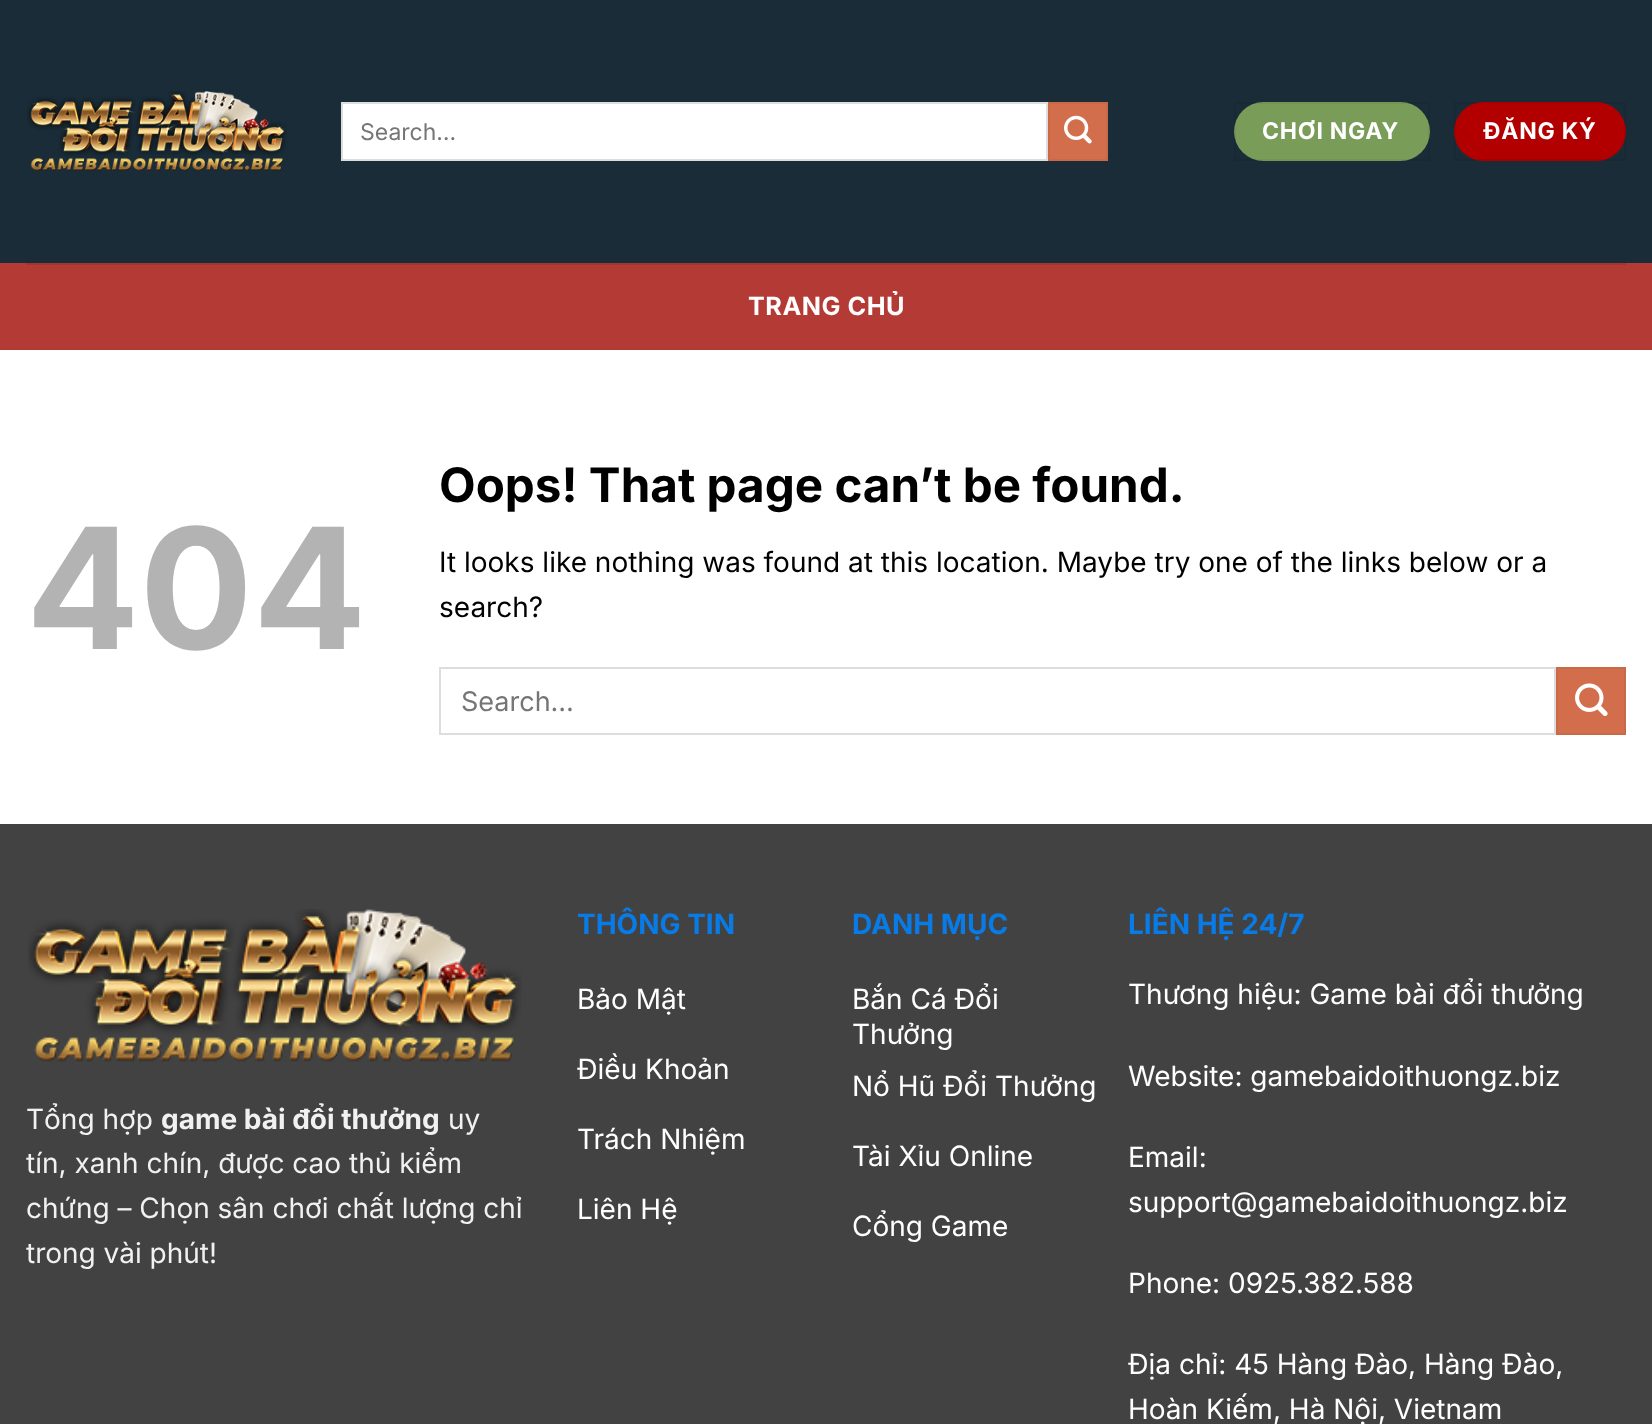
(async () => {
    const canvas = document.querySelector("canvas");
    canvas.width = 1652;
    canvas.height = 1424;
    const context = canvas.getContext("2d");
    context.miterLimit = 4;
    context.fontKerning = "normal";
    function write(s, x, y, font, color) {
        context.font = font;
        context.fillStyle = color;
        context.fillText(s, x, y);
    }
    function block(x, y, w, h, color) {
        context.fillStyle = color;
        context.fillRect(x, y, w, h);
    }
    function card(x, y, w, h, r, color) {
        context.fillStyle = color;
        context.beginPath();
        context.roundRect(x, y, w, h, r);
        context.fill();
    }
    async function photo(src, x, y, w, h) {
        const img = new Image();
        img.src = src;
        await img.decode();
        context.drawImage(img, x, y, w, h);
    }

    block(0, 0, 1652, 1424, "rgb(255, 255, 255)");
    block(0, 0, 1652, 263, "rgb(26, 44, 56)");
    await photo("media/1.png", 27, 91, 260, 80);
    context.fillStyle = "rgb(255, 255, 255)";
    context.beginPath();
    context.rect(342, 103, 705, 57);
    context.fill();
    context.strokeStyle = "rgb(221, 221, 221)";
    context.lineWidth = 2;
    context.stroke();
    write("Search…", 360, 140, "23px Inter", "rgb(117, 117, 117)");
    context.fillStyle = "rgb(210, 110, 75)";
    context.beginPath();
    context.rect(1049, 103, 58, 57);
    context.fill();
    context.strokeStyle = "rgb(200, 105, 71)";
    context.stroke();
    await photo("media/2.png", 1064, 115, 28, 29);
    card(1234, 102, 196, 59, 29.5, "rgb(122, 156, 89)");
    context.strokeStyle = "rgba(0, 0, 0, 0.05)";
    context.strokeRect(1235, 103, 194, 57);
    context.letterSpacing = "0.75px";
    write("CHƠI NGAY", 1262, 139, "bold 23px Inter", "rgb(255, 255, 255)");
    card(1454, 102, 172, 59, 29.5, "rgb(178, 0, 0)");
    context.strokeRect(1455, 103, 170, 57);
    write("ĐĂNG KÝ", 1483, 139, "bold 23px Inter", "rgb(255, 255, 255)");
    block(0, 263, 1652, 87, "rgb(180, 59, 53)");
    block(26, 263, 1600, 2, "rgb(162, 53, 48)");
    context.letterSpacing = "0.5px";
    write("TRANG CHỦ", 748, 315, "bold 25.25px Inter", "rgb(255, 255, 255)");
    context.letterSpacing = "0px";
    write("404", 26, 649, "bold 168px Inter", "rgb(179, 179, 179)");
    write("Oops! That page can’t be found.", 439, 502, "bold 47.6px Inter", "rgb(0, 0, 0)");
    write("It looks like nothing was found at this location. Maybe try one of the links below or a", 439, 572, "28px Inter", "rgb(0, 0, 0)");
    write("search?", 439, 617, "28px Inter", "rgb(0, 0, 0)");
    context.strokeStyle = "rgb(221, 221, 221)";
    context.strokeRect(440, 668, 1115, 66);
    write("Search…", 461, 711, "27px Inter", "rgb(117, 117, 117)");
    context.fillStyle = "rgb(210, 110, 75)";
    context.beginPath();
    context.rect(1557, 668, 68, 66);
    context.fill();
    context.strokeStyle = "rgb(200, 105, 71)";
    context.stroke();
    await photo("media/3.png", 1575, 683, 33, 33);
    block(0, 824, 1652, 600, "rgb(66, 66, 66)");
    await photo("media/4.png", 28, 909, 494, 153);
    write("Tổng hợp", 26, 1129, "28px Inter", "rgb(241, 241, 241)");
    write("game bài đổi thưởng", 161, 1129, "bold 28px Inter", "rgb(241, 241, 241)");
    write("uy", 448, 1129, "28px Inter", "rgb(241, 241, 241)");
    write("tín, xanh chín, được cao thủ kiểm", 26, 1173, "28px Inter", "rgb(241, 241, 241)");
    write("chứng – Chọn sân chơi chất lượng chỉ", 26, 1218, "28px Inter", "rgb(241, 241, 241)");
    write("trong vài phút!", 26, 1263, "28px Inter", "rgb(241, 241, 241)");
    write("THÔNG TIN", 577, 934, "bold 28px Inter", "rgb(8, 123, 231)");
    write("Bảo Mật", 577, 1009, "28px Inter", "rgb(255, 255, 255)");
    write("Điều Khoản", 577, 1079, "28px Inter", "rgb(255, 255, 255)");
    write("Trách Nhiệm", 577, 1149, "28px Inter", "rgb(255, 255, 255)");
    write("Liên Hệ", 577, 1219, "28px Inter", "rgb(255, 255, 255)");
    write("DANH MỤC", 852, 934, "bold 28px Inter", "rgb(8, 123, 231)");
    write("Bắn Cá Đổi", 852, 1009, "28px Inter", "rgb(255, 255, 255)");
    write("Thưởng", 852, 1044, "28px Inter", "rgb(255, 255, 255)");
    write("Nổ Hũ Đổi Thưởng", 852, 1096, "28px Inter", "rgb(255, 255, 255)");
    write("Tài Xỉu Online", 852, 1166, "28px Inter", "rgb(255, 255, 255)");
    write("Cổng Game", 852, 1236, "28px Inter", "rgb(255, 255, 255)");
    write("LIÊN HỆ 24/7", 1128, 934, "bold 28px Inter", "rgb(8, 123, 231)");
    write("Thương hiệu: Game bài đổi thưởng", 1128, 1004, "28px Inter", "rgb(255, 255, 255)");
    write("Website: gamebaidoithuongz.biz", 1128, 1086, "28px Inter", "rgb(255, 255, 255)");
    write("Email:", 1128, 1167, "28px Inter", "rgb(255, 255, 255)");
    write("support@gamebaidoithuongz.biz", 1128, 1212, "28px Inter", "rgb(255, 255, 255)");
    write("Phone: 0925.382.588", 1128, 1293, "28px Inter", "rgb(255, 255, 255)");
    write("Địa chỉ: 45 Hàng Đào, Hàng Đào,", 1128, 1374, "28px Inter", "rgb(255, 255, 255)");
    write("Hoàn Kiếm, Hà Nội, Vietnam", 1128, 1419, "28px Inter", "rgb(255, 255, 255)");
})();
